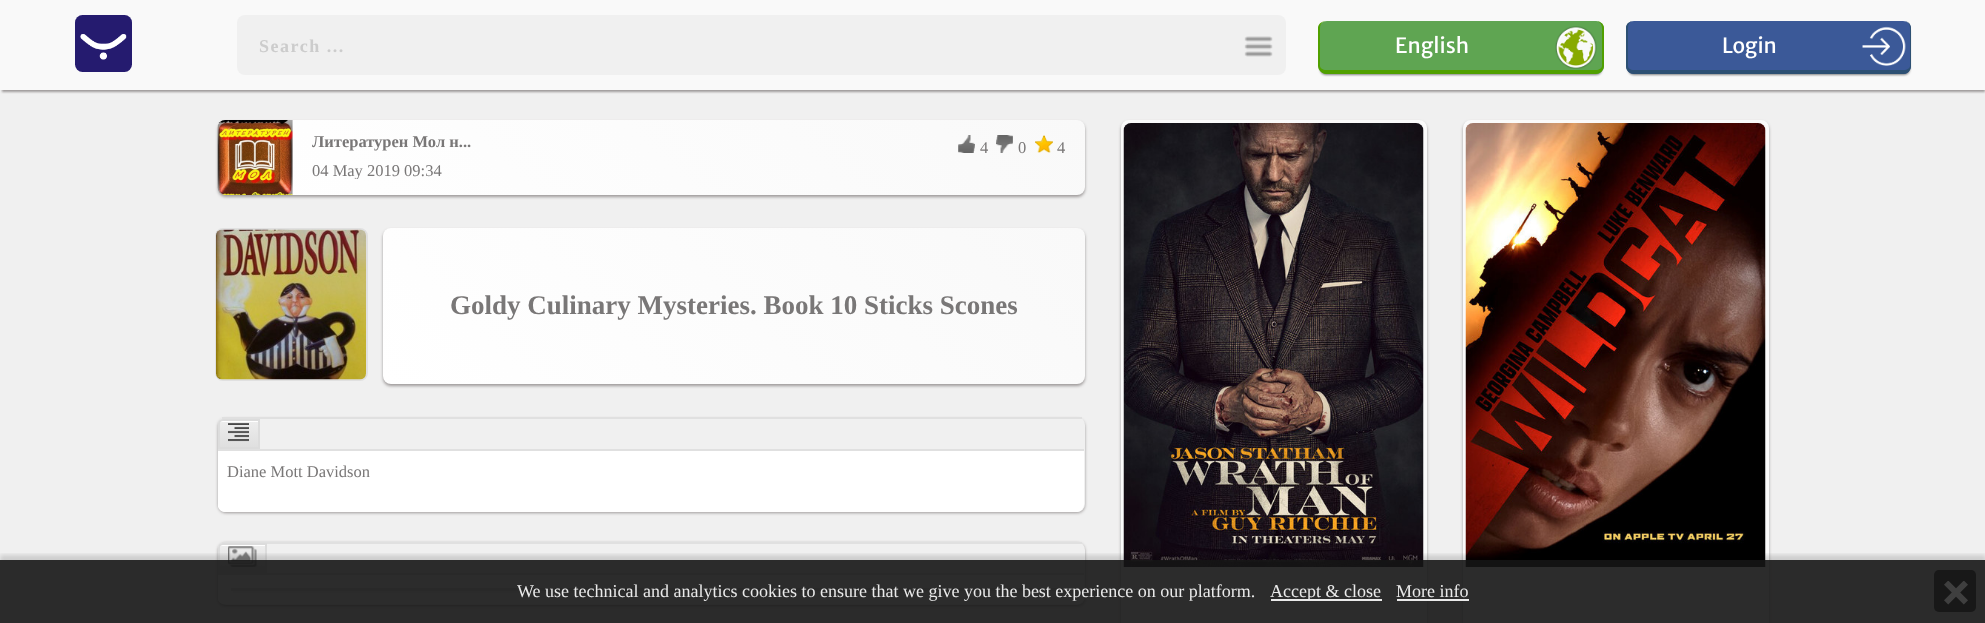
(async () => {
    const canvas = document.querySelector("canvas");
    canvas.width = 1985;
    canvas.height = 623;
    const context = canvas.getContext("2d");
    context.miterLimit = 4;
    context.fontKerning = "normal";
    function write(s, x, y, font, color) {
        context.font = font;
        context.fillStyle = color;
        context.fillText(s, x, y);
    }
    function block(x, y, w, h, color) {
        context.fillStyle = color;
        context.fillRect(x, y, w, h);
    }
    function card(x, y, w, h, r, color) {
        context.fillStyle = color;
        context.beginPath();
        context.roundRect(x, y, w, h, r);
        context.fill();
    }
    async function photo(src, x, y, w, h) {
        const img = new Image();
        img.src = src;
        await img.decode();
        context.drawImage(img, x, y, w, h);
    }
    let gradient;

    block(0, 0, 1985, 623, "rgb(240, 240, 240)");
    context.fillStyle = "rgba(34, 25, 25, 0.4)";
    context.filter = "blur(1px)";
    context.beginPath();
    context.rect(2, 5, 1983, 87);
    context.fill();
    context.filter = "none";
    block(0, 0, 1985, 90, "rgb(249, 249, 249)");
    await photo("media/1.png", 75, 15, 57, 57);
    card(237, 15, 1049, 60, 8, "rgb(240, 240, 240)");
    context.letterSpacing = "1.5px";
    write("Search ...", 259, 52, "bold 18px Liberation Serif", "rgb(204, 204, 204)");
    await photo("media/2.png", 1244, 36, 29, 21);
    context.fillStyle = "rgb(128, 128, 128)";
    context.filter = "blur(1px)";
    context.beginPath();
    context.roundRect(1320, 26, 282, 49, 6);
    context.fill();
    context.filter = "none";
    card(1319, 21, 285, 53, 8, "rgb(95, 165, 82)");
    await photo("media/3.png", 1555, 26, 42, 43);
    context.fillStyle = "rgb(80, 160, 0)";
    context.beginPath();
    context.moveTo(1326, 21);
    context.lineTo(1596, 21);
    context.bezierCurveTo(1600, 21, 1604, 24, 1604, 28);
    context.lineTo(1604, 66);
    context.bezierCurveTo(1604, 70, 1600, 74, 1596, 74);
    context.lineTo(1326, 74);
    context.bezierCurveTo(1322, 74, 1318, 70, 1318, 66);
    context.lineTo(1318, 28);
    context.bezierCurveTo(1318, 24, 1322, 21, 1326, 21);
    context.closePath();
    context.moveTo(1326, 21);
    context.lineTo(1596, 21);
    context.bezierCurveTo(1599, 21, 1602, 24, 1602, 28);
    context.lineTo(1602, 66);
    context.bezierCurveTo(1602, 68, 1599, 70, 1596, 70);
    context.lineTo(1326, 70);
    context.bezierCurveTo(1323, 70, 1320, 68, 1320, 66);
    context.lineTo(1320, 28);
    context.bezierCurveTo(1320, 24, 1323, 21, 1326, 21);
    context.closePath();
    context.fill("evenodd");
    context.letterSpacing = "0px";
    write("English", 1395, 53, "21px Merriweather Sans", "rgb(255, 255, 255)");
    context.fillStyle = "rgb(128, 128, 128)";
    context.filter = "blur(1px)";
    context.beginPath();
    context.roundRect(1628, 26, 282, 49, 6);
    context.fill();
    context.filter = "none";
    card(1626, 21, 285, 53, 8, "rgb(59, 89, 152)");
    await photo("media/4.png", 1862, 26, 44, 40);
    context.fillStyle = "rgb(45, 80, 115)";
    context.beginPath();
    context.moveTo(1634, 21);
    context.lineTo(1904, 21);
    context.bezierCurveTo(1908, 21, 1911, 24, 1911, 28);
    context.lineTo(1911, 66);
    context.bezierCurveTo(1911, 70, 1908, 74, 1904, 74);
    context.lineTo(1634, 74);
    context.bezierCurveTo(1629, 74, 1626, 70, 1626, 66);
    context.lineTo(1626, 28);
    context.bezierCurveTo(1626, 24, 1629, 21, 1634, 21);
    context.closePath();
    context.moveTo(1634, 21);
    context.lineTo(1904, 21);
    context.bezierCurveTo(1907, 21, 1910, 24, 1910, 28);
    context.lineTo(1910, 66);
    context.bezierCurveTo(1910, 68, 1907, 70, 1904, 70);
    context.lineTo(1634, 70);
    context.bezierCurveTo(1630, 70, 1628, 68, 1628, 66);
    context.lineTo(1628, 28);
    context.bezierCurveTo(1628, 24, 1630, 21, 1634, 21);
    context.closePath();
    context.fill("evenodd");
    write("Login", 1722, 53, "21px Merriweather Sans", "rgb(255, 255, 255)");
    context.fillStyle = "rgba(34, 25, 25, 0.4)";
    context.filter = "blur(1.5px)";
    context.beginPath();
    context.roundRect(218, 122, 867, 75, 8);
    context.fill();
    context.filter = "none";
    gradient = context.createLinearGradient(416, 393, 887, -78);
    gradient.addColorStop(0, "rgb(255, 255, 255)");
    gradient.addColorStop(1, "rgb(249, 249, 249)");
    context.fillStyle = gradient;
    context.beginPath();
    context.roundRect(218, 120, 867, 75, 8);
    context.fill();
    context.fillStyle = "rgb(240, 240, 240)";
    context.beginPath();
    context.roundRect(218, 120, 75, 75, [8, 0, 0, 8]);
    context.fill();
    await photo("media/5.png", 217, 120, 76, 75);
    write("Литературен Мол н...", 312, 147, "bold 16.5px Liberation Serif", "rgb(121, 119, 119)");
    context.save();
    context.beginPath();
    context.rect(312, 132, 270, 47);
    context.clip();
    write("04 May 2019 09:34", 312, 176, "16.5px Liberation Serif", "rgb(121, 119, 119)");
    context.restore();
    await photo("media/6.png", 958, 135, 17, 18);
    write("4", 980, 153, "16.5px Liberation Serif", "rgb(121, 119, 119)");
    await photo("media/7.png", 996, 135, 17, 18);
    write("0", 1018, 153, "16.5px Liberation Serif", "rgb(121, 119, 119)");
    await photo("media/8.png", 1035, 135, 18, 18);
    write("4", 1057, 153, "16.5px Liberation Serif", "rgb(121, 119, 119)");
    context.beginPath();
    context.roundRect(216, 229, 151, 151, 7);
    context.strokeStyle = "rgb(224, 224, 224)";
    context.lineWidth = 2;
    context.stroke();
    await photo("media/9.png", 216, 229, 150, 151);
    context.fillStyle = "rgba(34, 25, 25, 0.4)";
    context.filter = "blur(1.5px)";
    context.beginPath();
    context.roundRect(383, 230, 702, 156, 8);
    context.fill();
    context.filter = "none";
    gradient = context.createLinearGradient(519, 521, 948, 92);
    gradient.addColorStop(0, "rgb(255, 255, 255)");
    gradient.addColorStop(1, "rgb(249, 249, 249)");
    context.fillStyle = gradient;
    context.beginPath();
    context.roundRect(383, 228, 702, 156, 8);
    context.fill();
    write("Goldy Culinary Mysteries. Book 10 Sticks Scones", 450, 314, "bold 27px Liberation Serif", "rgb(121, 119, 119)");
    context.fillStyle = "rgba(34, 25, 25, 0.4)";
    context.filter = "blur(1.5px)";
    context.beginPath();
    context.roundRect(218, 419, 867, 94, 8);
    context.fill();
    context.filter = "none";
    card(218, 417, 867, 95, 8, "rgb(240, 240, 240)");
    block(222, 417, 860, 2, "rgb(224, 224, 224)");
    gradient = context.createLinearGradient(219, 420, 219, 447);
    gradient.addColorStop(0.05, "rgb(237, 237, 237)");
    gradient.addColorStop(1, "rgb(223, 223, 223)");
    context.fillStyle = gradient;
    context.beginPath();
    context.moveTo(218, 424);
    context.lineTo(218, 447);
    context.lineTo(260, 447);
    context.lineTo(260, 420);
    context.lineTo(220, 420);
    context.bezierCurveTo(219, 421, 218, 422, 218, 424);
    context.closePath();
    context.fill();
    context.fillStyle = "rgb(255, 255, 255)";
    context.beginPath();
    context.moveTo(222, 422);
    context.lineTo(258, 422);
    context.lineTo(258, 420);
    context.lineTo(222, 420);
    context.bezierCurveTo(220.5, 420, 219, 421.5, 219, 423);
    context.lineTo(219, 424);
    context.bezierCurveTo(219, 423, 220, 422, 222, 422);
    context.closePath();
    context.fill();
    context.fillStyle = "rgb(220, 220, 220)";
    context.beginPath();
    context.moveTo(223, 419);
    context.lineTo(260, 419);
    context.lineTo(260, 449);
    context.lineTo(218, 449);
    context.lineTo(218, 432);
    context.bezierCurveTo(218, 428, 216, 419, 223, 419);
    context.closePath();
    context.moveTo(223, 421);
    context.bezierCurveTo(221, 421, 220, 422, 220, 424);
    context.lineTo(220, 447);
    context.lineTo(258, 447);
    context.lineTo(258, 421);
    context.closePath();
    context.fill("evenodd");
    await photo("media/10.png", 228, 423, 21, 19);
    context.fillStyle = "rgb(255, 255, 255)";
    context.beginPath();
    context.moveTo(218, 450);
    context.lineTo(1084, 450);
    context.lineTo(1084, 504);
    context.bezierCurveTo(1084, 508, 1081, 512, 1077, 512);
    context.lineTo(225, 512);
    context.bezierCurveTo(222, 512, 219, 510, 218, 507);
    context.closePath();
    context.fill();
    block(218, 449, 866, 2, "rgb(224, 224, 224)");
    write("Diane Mott Davidson", 227, 477, "16.5px Liberation Serif", "rgb(121, 119, 119)");
    context.fillStyle = "rgba(34, 25, 25, 0.4)";
    context.filter = "blur(1.5px)";
    context.beginPath();
    context.roundRect(218, 543, 867, 63, 8);
    context.fill();
    context.filter = "none";
    card(218, 542, 867, 63, 8, "rgb(240, 240, 240)");
    block(222, 542, 860, 2, "rgb(224, 224, 224)");
    gradient = context.createLinearGradient(219, 545, 219, 572);
    gradient.addColorStop(0.05, "rgb(237, 237, 237)");
    gradient.addColorStop(1, "rgb(223, 223, 223)");
    context.fillStyle = gradient;
    context.beginPath();
    context.moveTo(218, 548);
    context.lineTo(218, 572);
    context.lineTo(267, 572);
    context.lineTo(267, 545);
    context.lineTo(219, 545);
    context.bezierCurveTo(218, 546, 218, 547, 218, 548);
    context.closePath();
    context.fill();
    context.fillStyle = "rgb(255, 255, 255)";
    context.beginPath();
    context.moveTo(222, 546);
    context.lineTo(266, 546);
    context.lineTo(266, 545);
    context.lineTo(222, 545);
    context.bezierCurveTo(220, 545, 219, 546, 219, 548);
    context.lineTo(219, 549);
    context.bezierCurveTo(219, 547, 220, 546, 222, 546);
    context.closePath();
    context.fill();
    context.fillStyle = "rgb(220, 220, 220)";
    context.beginPath();
    context.moveTo(225, 543);
    context.bezierCurveTo(216, 543, 218, 550, 218, 556);
    context.lineTo(218, 573);
    context.lineTo(267, 573);
    context.lineTo(267, 543);
    context.closePath();
    context.moveTo(223, 545);
    context.bezierCurveTo(221, 545, 220, 546, 220, 548);
    context.lineTo(220, 571);
    context.lineTo(265, 571);
    context.lineTo(265, 545);
    context.closePath();
    context.fill("evenodd");
    await photo("media/11.png", 228, 546, 29, 21);
    context.fillStyle = "rgb(255, 255, 255)";
    context.beginPath();
    context.moveTo(218, 575);
    context.lineTo(1084, 575);
    context.lineTo(1084, 597);
    context.bezierCurveTo(1084, 601, 1081, 604, 1077, 604);
    context.lineTo(225, 604);
    context.bezierCurveTo(222, 604, 219, 603, 218, 600);
    context.closePath();
    context.fill();
    block(218, 573, 866, 2, "rgb(224, 224, 224)");
    context.fillStyle = "rgb(233, 233, 233)";
    context.filter = "blur(1px)";
    context.beginPath();
    context.rect(233, 590, 840, 3);
    context.fill();
    context.filter = "none";
    block(231, 588, 840, 3, "rgb(224, 224, 224)");
    context.fillStyle = "rgba(34, 25, 25, 0.4)";
    context.filter = "blur(1.5px)";
    context.beginPath();
    context.roundRect(1121, 122, 306, 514, 8);
    context.fill();
    context.filter = "none";
    gradient = context.createLinearGradient(1037, 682, 1510, 209);
    gradient.addColorStop(0, "rgb(255, 255, 255)");
    gradient.addColorStop(1, "rgb(249, 249, 249)");
    context.fillStyle = gradient;
    context.fillRect(1124, 123, 300, 500);
    context.beginPath();
    context.roundRect(1122.5, 121.5, 303, 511, 6.5);
    context.strokeStyle = "rgb(250, 250, 250)";
    context.lineWidth = 3;
    context.stroke();
    await photo("media/12.png", 1123, 123, 301, 444);
    context.fillStyle = "rgba(34, 25, 25, 0.4)";
    context.filter = "blur(1.5px)";
    context.beginPath();
    context.roundRect(1463, 122, 306, 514, 8);
    context.fill();
    context.filter = "none";
    gradient = context.createLinearGradient(1379, 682, 1852, 209);
    gradient.addColorStop(0, "rgb(255, 255, 255)");
    gradient.addColorStop(1, "rgb(249, 249, 249)");
    context.fillStyle = gradient;
    context.fillRect(1466, 123, 300, 500);
    context.beginPath();
    context.roundRect(1464.5, 121.5, 303, 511, 6.5);
    context.stroke();
    await photo("media/13.png", 1465, 123, 301, 444);
    context.save();
    context.beginPath();
    context.rect(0, 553, 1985, 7);
    context.clip();
    context.fillStyle = "rgba(0, 0, 0, 0.14)";
    context.filter = "blur(2px)";
    context.beginPath();
    context.rect(0, 555, 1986, 65);
    context.fill();
    context.filter = "none";
    context.restore();
    block(0, 560, 1985, 63, "rgba(21, 21, 21, 0.9)");
    write("We use technical and analytics cookies to ensure that we give you the best experience on our platform.", 517, 597, "18px Liberation Serif", "rgb(234, 234, 234)");
    block(1271, 599, 111, 2, "rgba(255, 255, 255, 0.9)");
    write("Accept & close", 1270, 597, "18px Liberation Serif", "rgb(234, 234, 234)");
    write("More info", 1396, 597, "18px Liberation Serif", "rgb(234, 234, 234)");
    block(1397, 599, 72, 2, "rgba(255, 255, 255, 0.9)");
    card(1934, 570, 42, 42, 5, "rgb(24, 24, 24)");
    await photo("media/14.png", 1944, 581, 24, 24);
})();
